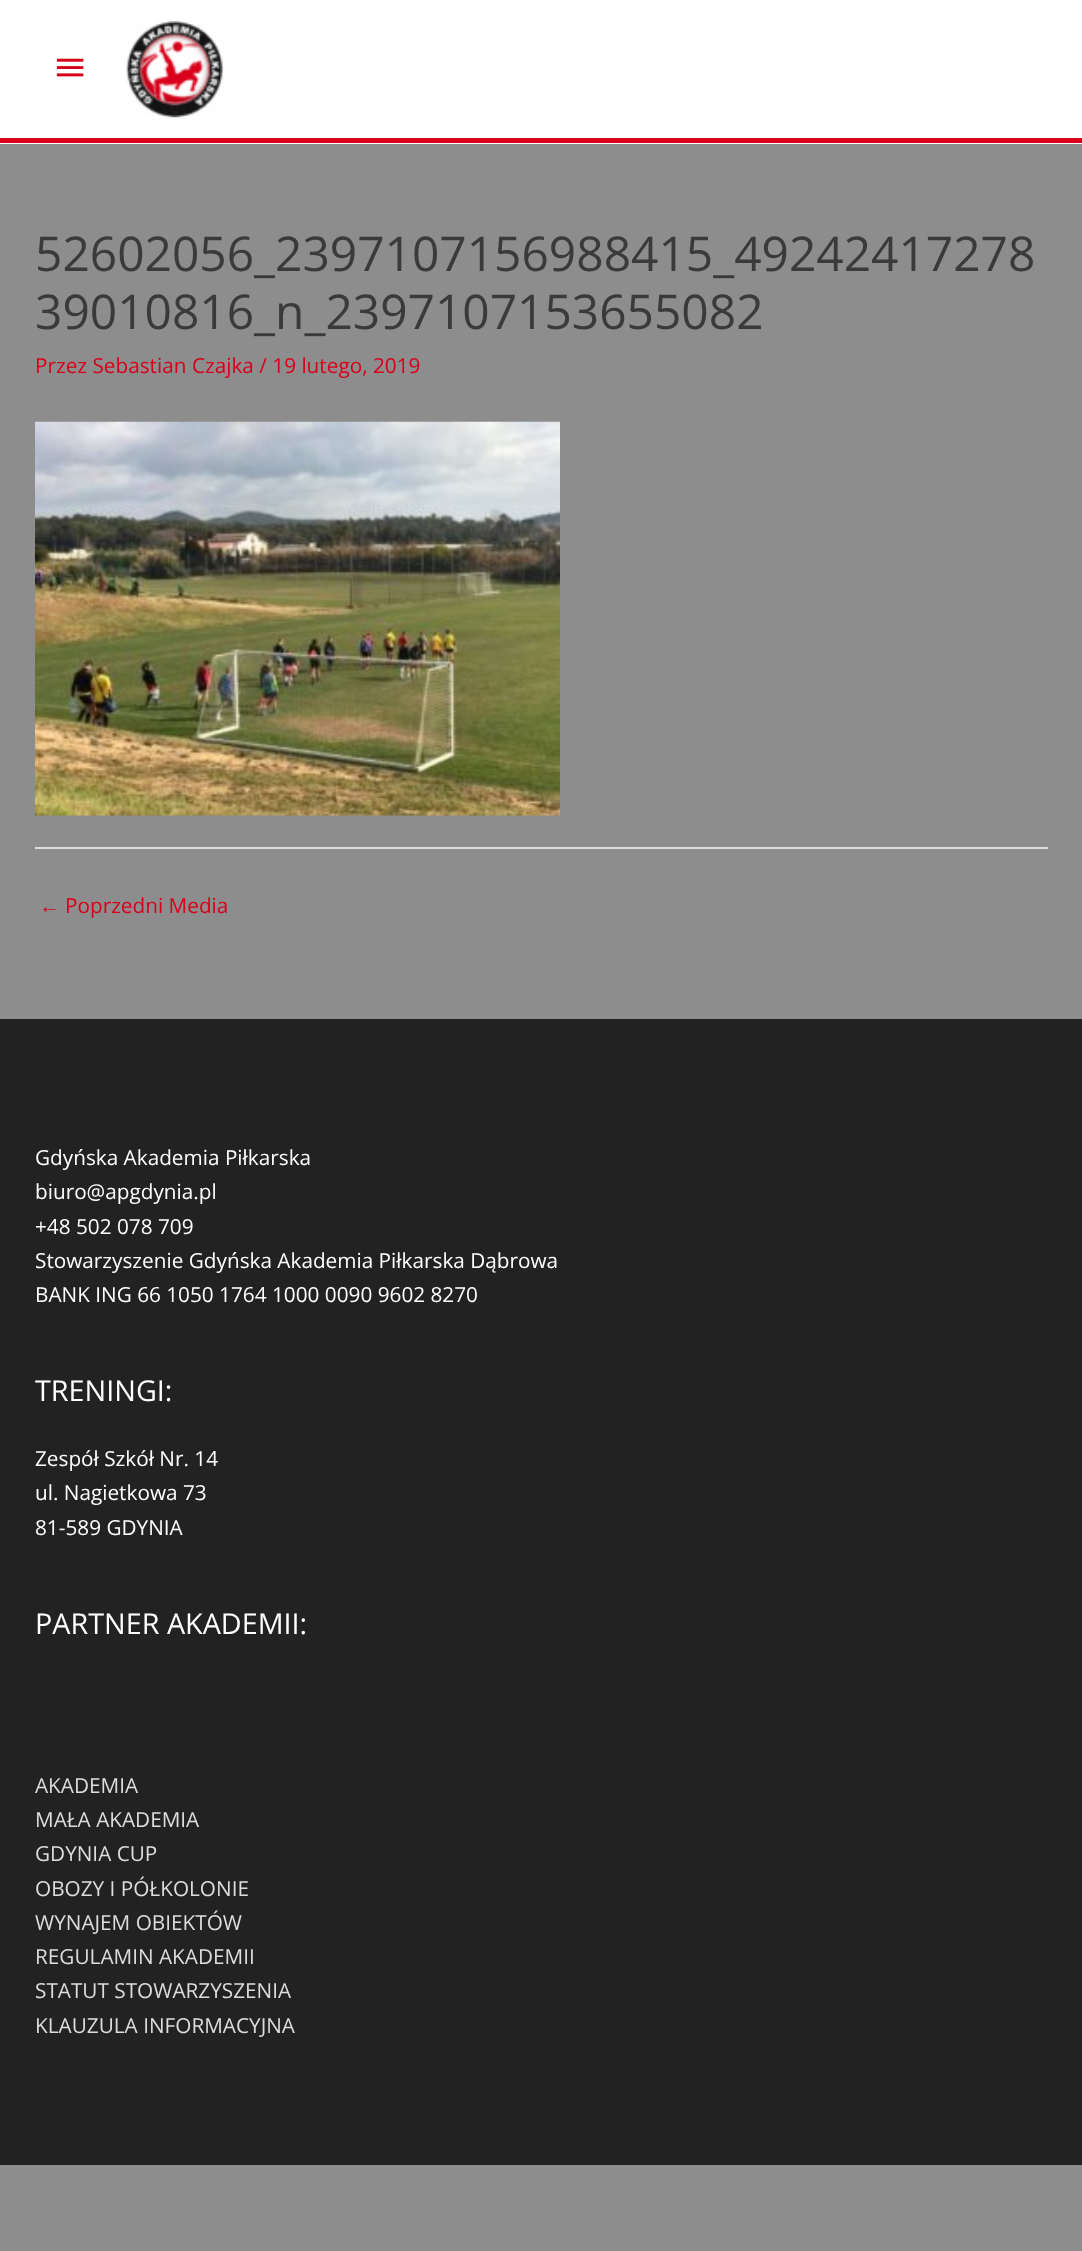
(async () => {
    const canvas = document.querySelector("canvas");
    canvas.width = 1082;
    canvas.height = 2251;
    const context = canvas.getContext("2d");
    context.miterLimit = 4;
    context.fontKerning = "normal";
    function write(s, x, y, font, color) {
        context.font = font;
        context.fillStyle = color;
        context.fillText(s, x, y);
    }
    function block(x, y, w, h, color) {
        context.fillStyle = color;
        context.fillRect(x, y, w, h);
    }
    async function photo(src, x, y, w, h) {
        const img = new Image();
        img.src = src;
        await img.decode();
        context.drawImage(img, x, y, w, h);
    }

    block(0, 0, 1082, 2251, "rgb(141, 141, 141)");
    block(0, 0, 1082, 144, "rgb(255, 255, 255)");
    block(0, 138, 1082, 5, "rgb(216, 0, 26)");
    await photo("media/1.png", 56, 58, 28, 19);
    await photo("media/2.png", 126, 21, 98, 97);
    write("52602056_2397107156988415_49242417278", 35, 271, "47.9px Open Sans", "rgb(58, 58, 58)");
    write("39010816_n_2397107153655082", 35, 329, "47.9px Open Sans", "rgb(58, 58, 58)");
    write("Przez Sebastian Czajka / 19 lutego, 2019", 35, 373, "20.75px Open Sans", "rgb(216, 0, 26)");
    await photo("media/3.png", 35, 421, 525, 395);
    block(35, 847, 1013, 2, "rgb(221, 221, 221)");
    write("←", 39, 913, "20.75px Liberation Sans", "rgb(216, 0, 26)");
    write("Poprzedni Media", 65, 913, "20.75px Open Sans", "rgb(216, 0, 26)");
    block(0, 1019, 1082, 1146, "rgb(34, 34, 34)");
    write("Gdyńska Akademia Piłkarska", 35, 1165, "20.75px Open Sans", "rgb(255, 255, 255)");
    write("biuro@apgdynia.pl", 35, 1199, "20.75px Open Sans", "rgb(255, 255, 255)");
    write("+48 502 078 709", 35, 1234, "20.75px Open Sans", "rgb(255, 255, 255)");
    write("Stowarzyszenie Gdyńska Akademia Piłkarska Dąbrowa", 35, 1268, "20.75px Open Sans", "rgb(255, 255, 255)");
    write("BANK ING 66 1050 1764 1000 0090 9602 8270", 35, 1302, "20.75px Open Sans", "rgb(255, 255, 255)");
    write("TRENINGI:", 35, 1401, "28.75px Open Sans", "rgb(255, 255, 255)");
    write("Zespół Szkół Nr. 14", 35, 1466, "20.75px Open Sans", "rgb(255, 255, 255)");
    write("ul. Nagietkowa 73", 35, 1500, "20.75px Open Sans", "rgb(255, 255, 255)");
    write("81-589 GDYNIA", 35, 1535, "20.75px Open Sans", "rgb(255, 255, 255)");
    write("PARTNER AKADEMII:", 35, 1634, "28.75px Open Sans", "rgb(255, 255, 255)");
    write("AKADEMIA", 35, 1793, "20.75px Open Sans", "rgb(221, 221, 221)");
    write("MAŁA AKADEMIA", 35, 1827, "20.75px Open Sans", "rgb(221, 221, 221)");
    write("GDYNIA CUP", 35, 1861, "20.75px Open Sans", "rgb(221, 221, 221)");
    write("OBOZY I PÓŁKOLONIE", 35, 1896, "20.75px Open Sans", "rgb(221, 221, 221)");
    write("WYNAJEM OBIEKTÓW", 35, 1930, "20.75px Open Sans", "rgb(221, 221, 221)");
    write("REGULAMIN AKADEMII", 35, 1964, "20.75px Open Sans", "rgb(221, 221, 221)");
    write("STATUT STOWARZYSZENIA", 35, 1998, "20.75px Open Sans", "rgb(221, 221, 221)");
    write("KLAUZULA INFORMACYJNA", 35, 2033, "20.75px Open Sans", "rgb(221, 221, 221)");
})();
